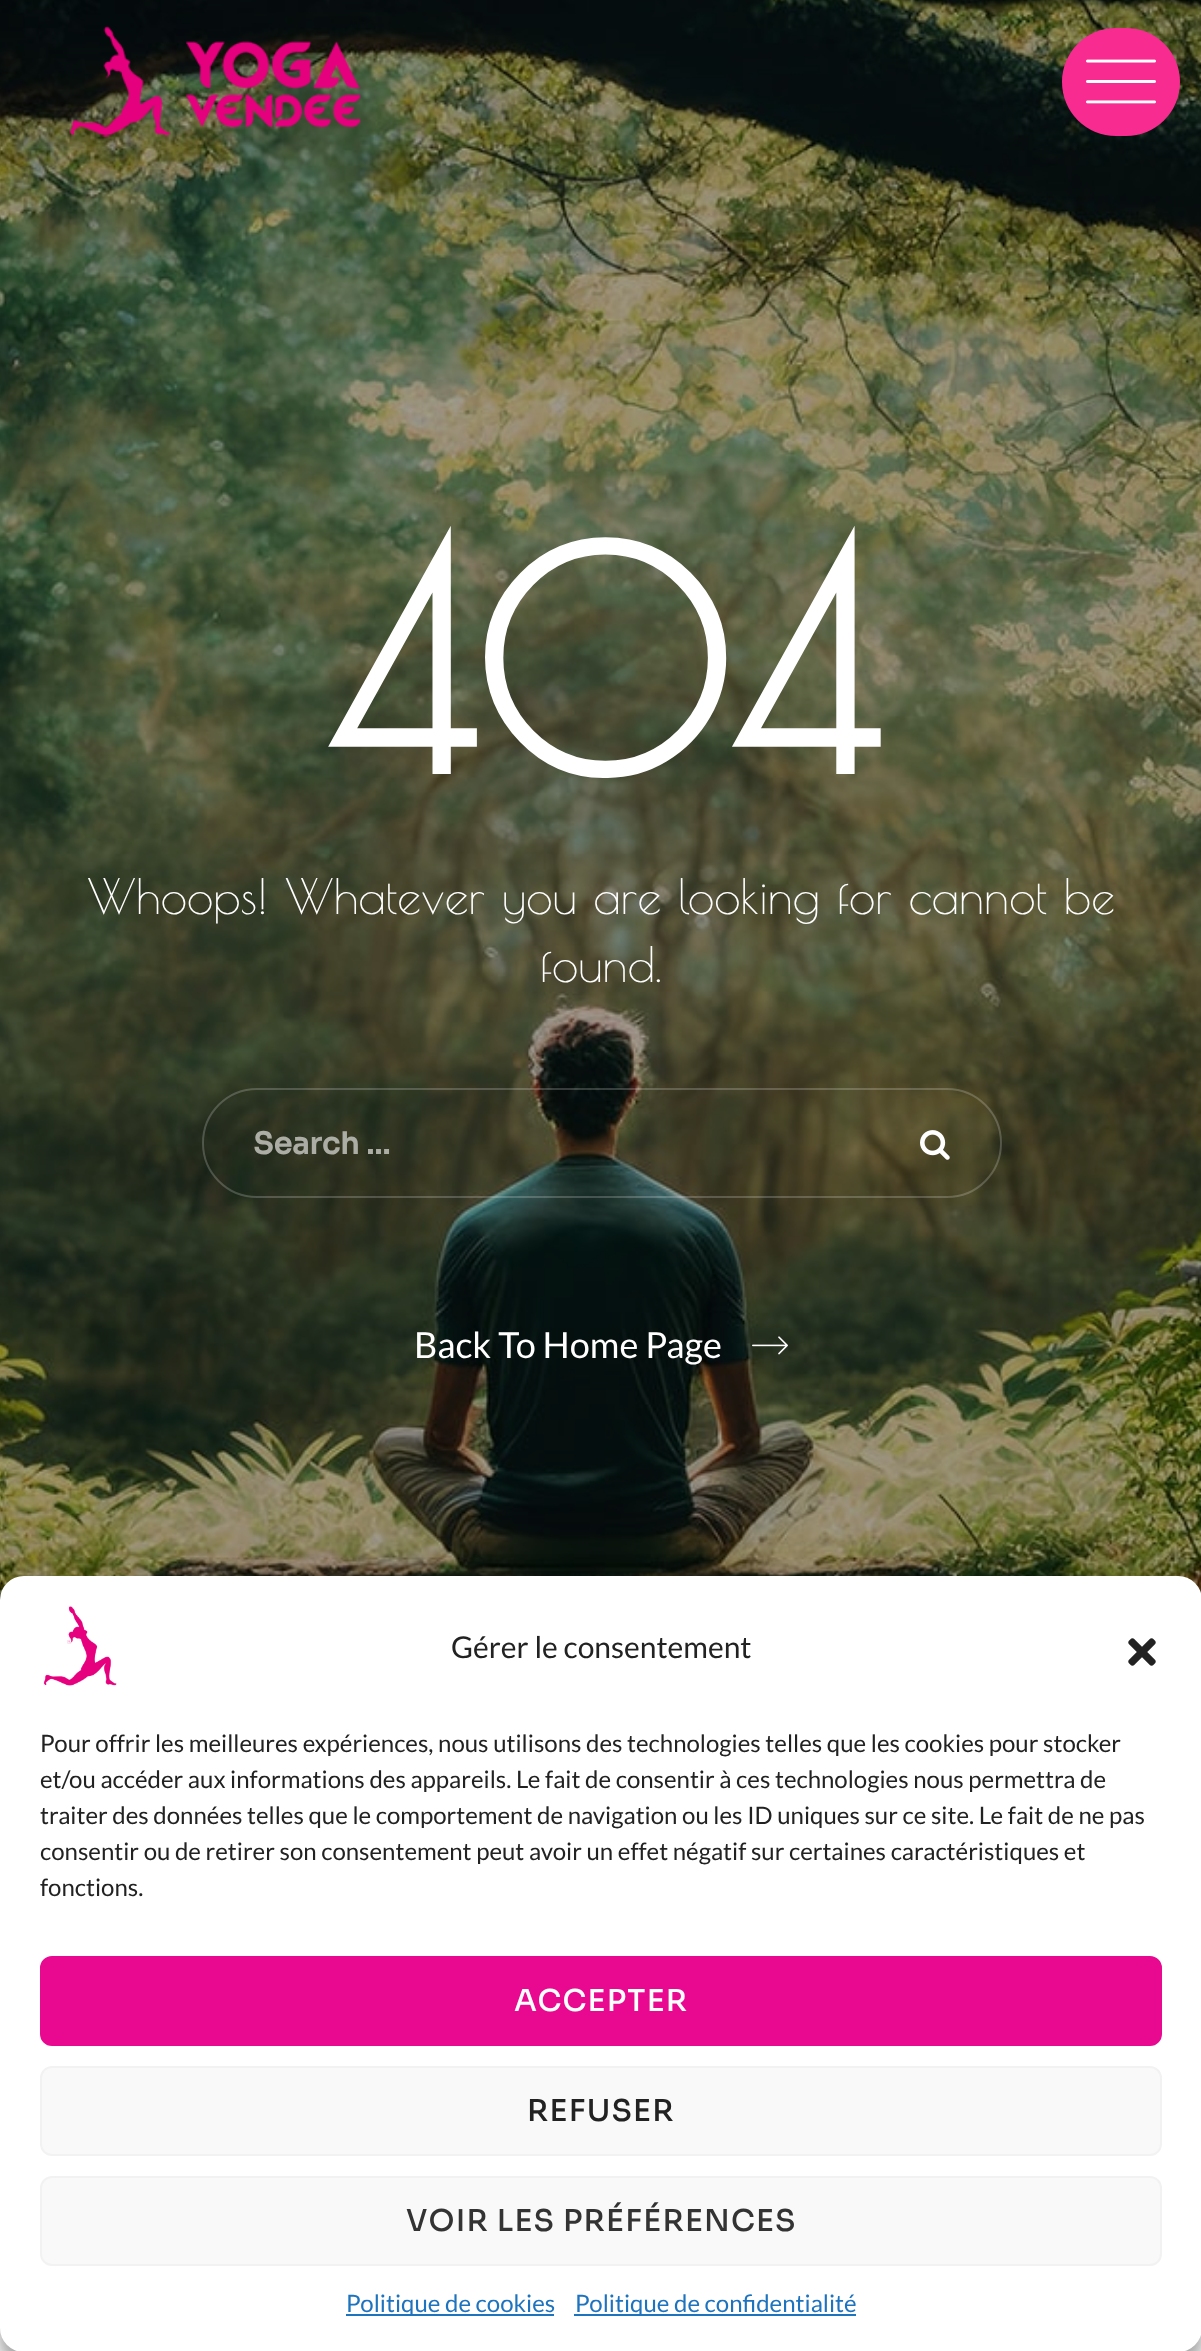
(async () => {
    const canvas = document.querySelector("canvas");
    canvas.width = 1201;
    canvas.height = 2351;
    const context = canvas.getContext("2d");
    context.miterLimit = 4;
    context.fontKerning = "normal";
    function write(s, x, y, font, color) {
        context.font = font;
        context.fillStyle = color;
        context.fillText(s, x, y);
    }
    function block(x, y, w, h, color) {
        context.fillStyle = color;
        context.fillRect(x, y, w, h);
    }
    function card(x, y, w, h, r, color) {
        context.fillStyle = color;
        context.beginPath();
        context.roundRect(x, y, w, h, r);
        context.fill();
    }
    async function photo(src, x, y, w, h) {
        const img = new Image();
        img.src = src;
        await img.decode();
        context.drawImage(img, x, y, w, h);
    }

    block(0, 0, 1201, 2351, "rgb(255, 255, 255)");
    await photo("media/3.png", 0, 0, 1201, 1600);
    await photo("media/1.png", 70, 25, 291, 112);
    card(1062, 28, 118, 108, 54, "rgb(248, 44, 144)");
    await photo("media/2.png", 1086, 59, 70, 45);
    write("404", 326, 774, "bold 300px Poiret One", "rgb(255, 255, 255)");
    write("Whoops! Whatever you are looking for cannot be", 87, 914, "48px Poiret One", "rgb(255, 255, 255)");
    write("found.", 540, 982, "48px Poiret One", "rgb(255, 255, 255)");
    context.beginPath();
    context.roundRect(203, 1089, 798, 108, 54);
    context.strokeStyle = "rgba(255, 255, 255, 0.2)";
    context.lineWidth = 2;
    context.stroke();
    write("Search …", 253, 1154, "bold 30px Sora", "rgb(172, 174, 166)");
    await photo("media/4.png", 920, 1130, 30, 30);
    write("Back To Home Page", 414, 1358, "36px Lato", "rgb(255, 255, 255)");
    await photo("media/5.png", 752, 1336, 36, 19);
    context.fillStyle = "rgba(0, 0, 0, 0.23)";
    context.filter = "blur(6px)";
    context.beginPath();
    context.roundRect(0, 1588, 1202, 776, 24);
    context.fill();
    context.filter = "none";
    context.fillStyle = "rgba(0, 0, 0, 0.19)";
    context.filter = "blur(20px)";
    context.beginPath();
    context.roundRect(0, 1596, 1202, 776, 24);
    context.fill();
    context.filter = "none";
    card(0, 1576, 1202, 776, 24, "rgb(255, 255, 255)");
    await photo("media/6.png", 43, 1606, 74, 80);
    write("Gérer le consentement", 451, 1658, "30px Lato", "rgb(34, 34, 34)");
    await photo("media/7.png", 1128, 1638, 28, 28);
    write("Pour offrir les meilleures expériences, nous utilisons des technologies telles que les cookies pour stocker", 40, 1752, "24px Lato", "rgb(34, 34, 34)");
    write("et/ou accéder aux informations des appareils. Le fait de consentir à ces technologies nous permettra de", 40, 1788, "24px Lato", "rgb(34, 34, 34)");
    write("traiter des données telles que le comportement de navigation ou les ID uniques sur ce site. Le fait de ne pas", 40, 1824, "24px Lato", "rgb(34, 34, 34)");
    write("consentir ou de retirer son consentement peut avoir un effet négatif sur certaines caractéristiques et", 40, 1860, "24px Lato", "rgb(34, 34, 34)");
    write("fonctions.", 40, 1896, "24px Lato", "rgb(34, 34, 34)");
    context.fillStyle = "rgb(233, 9, 144)";
    context.beginPath();
    context.roundRect(41, 1957, 1120, 88, 11);
    context.fill();
    context.strokeStyle = "rgb(233, 9, 144)";
    context.stroke();
    context.letterSpacing = "1.2px";
    write("ACCEPTER", 514, 2011, "500 30px Sora", "rgb(255, 255, 255)");
    context.fillStyle = "rgb(249, 249, 249)";
    context.beginPath();
    context.roundRect(41, 2067, 1120, 88, 11);
    context.fill();
    context.strokeStyle = "rgb(242, 242, 242)";
    context.stroke();
    write("REFUSER", 527, 2121, "500 30px Sora", "rgb(34, 34, 34)");
    context.fillStyle = "rgb(249, 249, 249)";
    context.beginPath();
    context.roundRect(41, 2177, 1120, 88, 11);
    context.fill();
    context.stroke();
    write("VOIR LES PRÉFÉRENCES", 406, 2231, "500 30px Sora", "rgb(51, 51, 51)");
    block(346, 2314, 208, 2, "rgb(30, 115, 190)");
    context.letterSpacing = "0px";
    write("Politique de cookies", 346, 2312, "24px Lato", "rgb(30, 115, 190)");
    block(574, 2314, 282, 2, "rgb(30, 115, 190)");
    write("Politique de confidentialité", 575, 2312, "24px Lato", "rgb(30, 115, 190)");
})();
